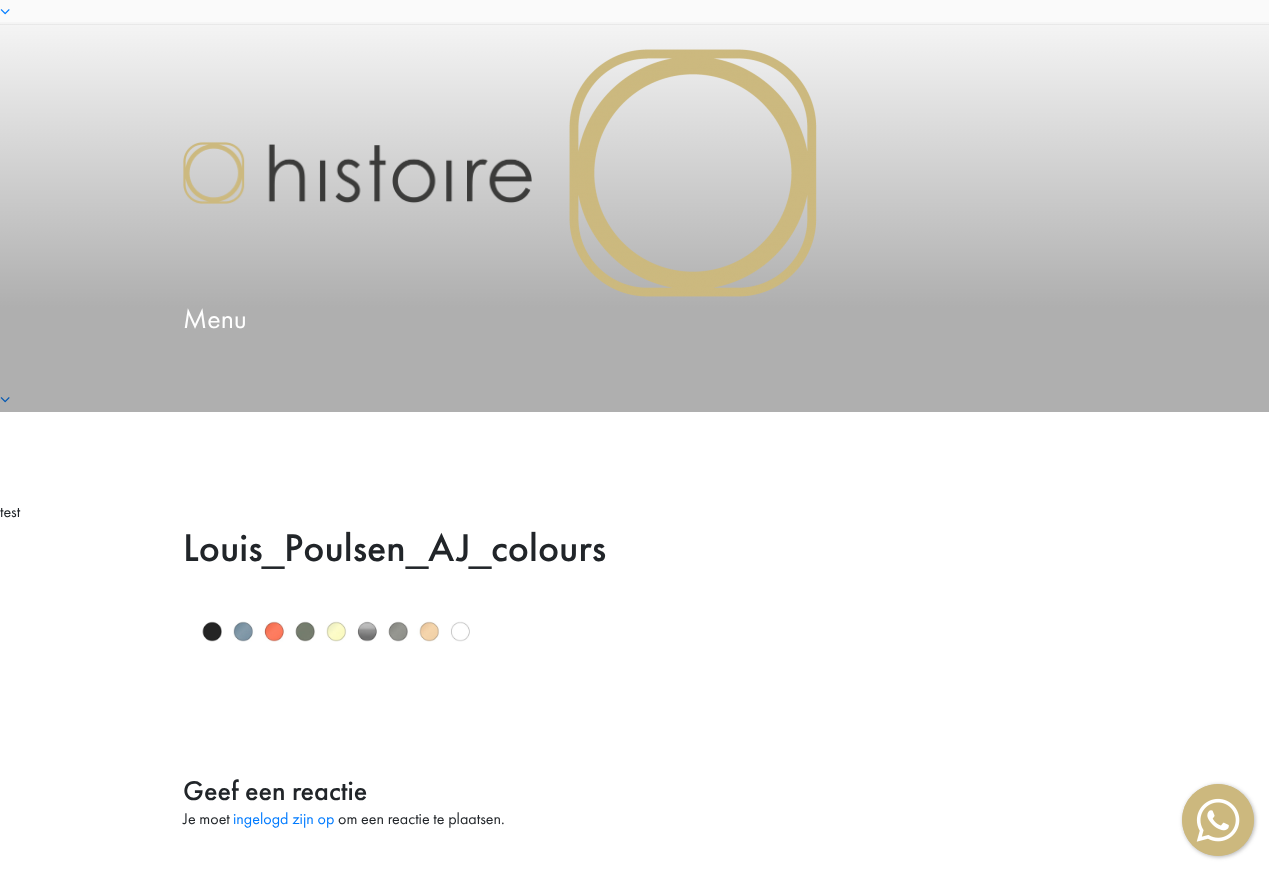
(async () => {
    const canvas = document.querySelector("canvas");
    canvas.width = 1269;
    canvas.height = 871;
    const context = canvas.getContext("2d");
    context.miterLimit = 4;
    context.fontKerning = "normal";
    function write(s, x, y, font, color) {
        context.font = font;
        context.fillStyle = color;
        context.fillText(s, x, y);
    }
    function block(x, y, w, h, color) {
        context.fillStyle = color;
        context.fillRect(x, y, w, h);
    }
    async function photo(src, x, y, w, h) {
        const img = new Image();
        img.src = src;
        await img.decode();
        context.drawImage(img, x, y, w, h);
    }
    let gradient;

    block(0, 0, 1269, 871, "rgb(255, 255, 255)");
    block(0, 0, 1269, 412, "rgb(250, 250, 250)");
    block(0, 24, 1269, 1, "rgb(238, 238, 238)");
    await photo("media/1.png", 0, 9, 10, 6);
    await photo("media/1.png", 0, 397, 10, 6);
    gradient = context.createLinearGradient(635, 0, 635, 412);
    gradient.addColorStop(0, "rgba(0, 0, 0, 0)");
    gradient.addColorStop(0.75, "rgba(0, 0, 0, 0.3)");
    gradient.addColorStop(1, "rgba(0, 0, 0, 0.3)");
    context.fillStyle = gradient;
    context.fillRect(0, 22, 1269, 390);
    await photo("media/2.png", 183, 142, 349, 62);
    await photo("media/3.png", 569, 49, 248, 248);
    write("Menu", 183, 328, "28px Futura PT", "rgb(255, 255, 255)");
    write("test", 0, 517, "16px Futura PT", "rgb(33, 37, 41)");
    write("Louis", 183, 561, "500 40px Futura PT", "rgb(33, 37, 41)");
    write("Poulsen", 284, 561, "500 40px Futura PT", "rgb(33, 37, 41)");
    write("AJ", 428, 561, "500 40px Futura PT", "rgb(33, 37, 41)");
    write("colours", 491, 561, "500 40px Futura PT", "rgb(33, 37, 41)");
    write("_", 262, 561, "40px Liberation Sans", "rgb(33, 37, 41)");
    write("_", 406, 561, "40px Liberation Sans", "rgb(33, 37, 41)");
    write("_", 469, 561, "40px Liberation Sans", "rgb(33, 37, 41)");
    await photo("media/4.png", 202, 621, 268, 21);
    write("Geef een reactie", 183, 800, "500 28px Futura PT", "rgb(33, 37, 41)");
    write("Je moet", 183, 824, "16px Futura PT", "rgb(33, 37, 41)");
    write("ingelogd zijn op", 233, 824, "16px Futura PT", "rgb(0, 123, 255)");
    write("om een reactie te plaatsen.", 338, 824, "16px Futura PT", "rgb(33, 37, 41)");
    context.fillStyle = "rgba(60, 60, 60, 0.4)";
    context.filter = "blur(2px)";
    context.beginPath();
    context.roundRect(1183, 785, 72, 72, 36);
    context.fill();
    context.filter = "none";
    context.fillStyle = "rgb(204, 184, 126)";
    context.beginPath();
    context.arc(1218, 820, 36, 0, Math.PI * 2);
    context.fill();
    await photo("media/5.png", 1182, 784, 72, 72);
})();
